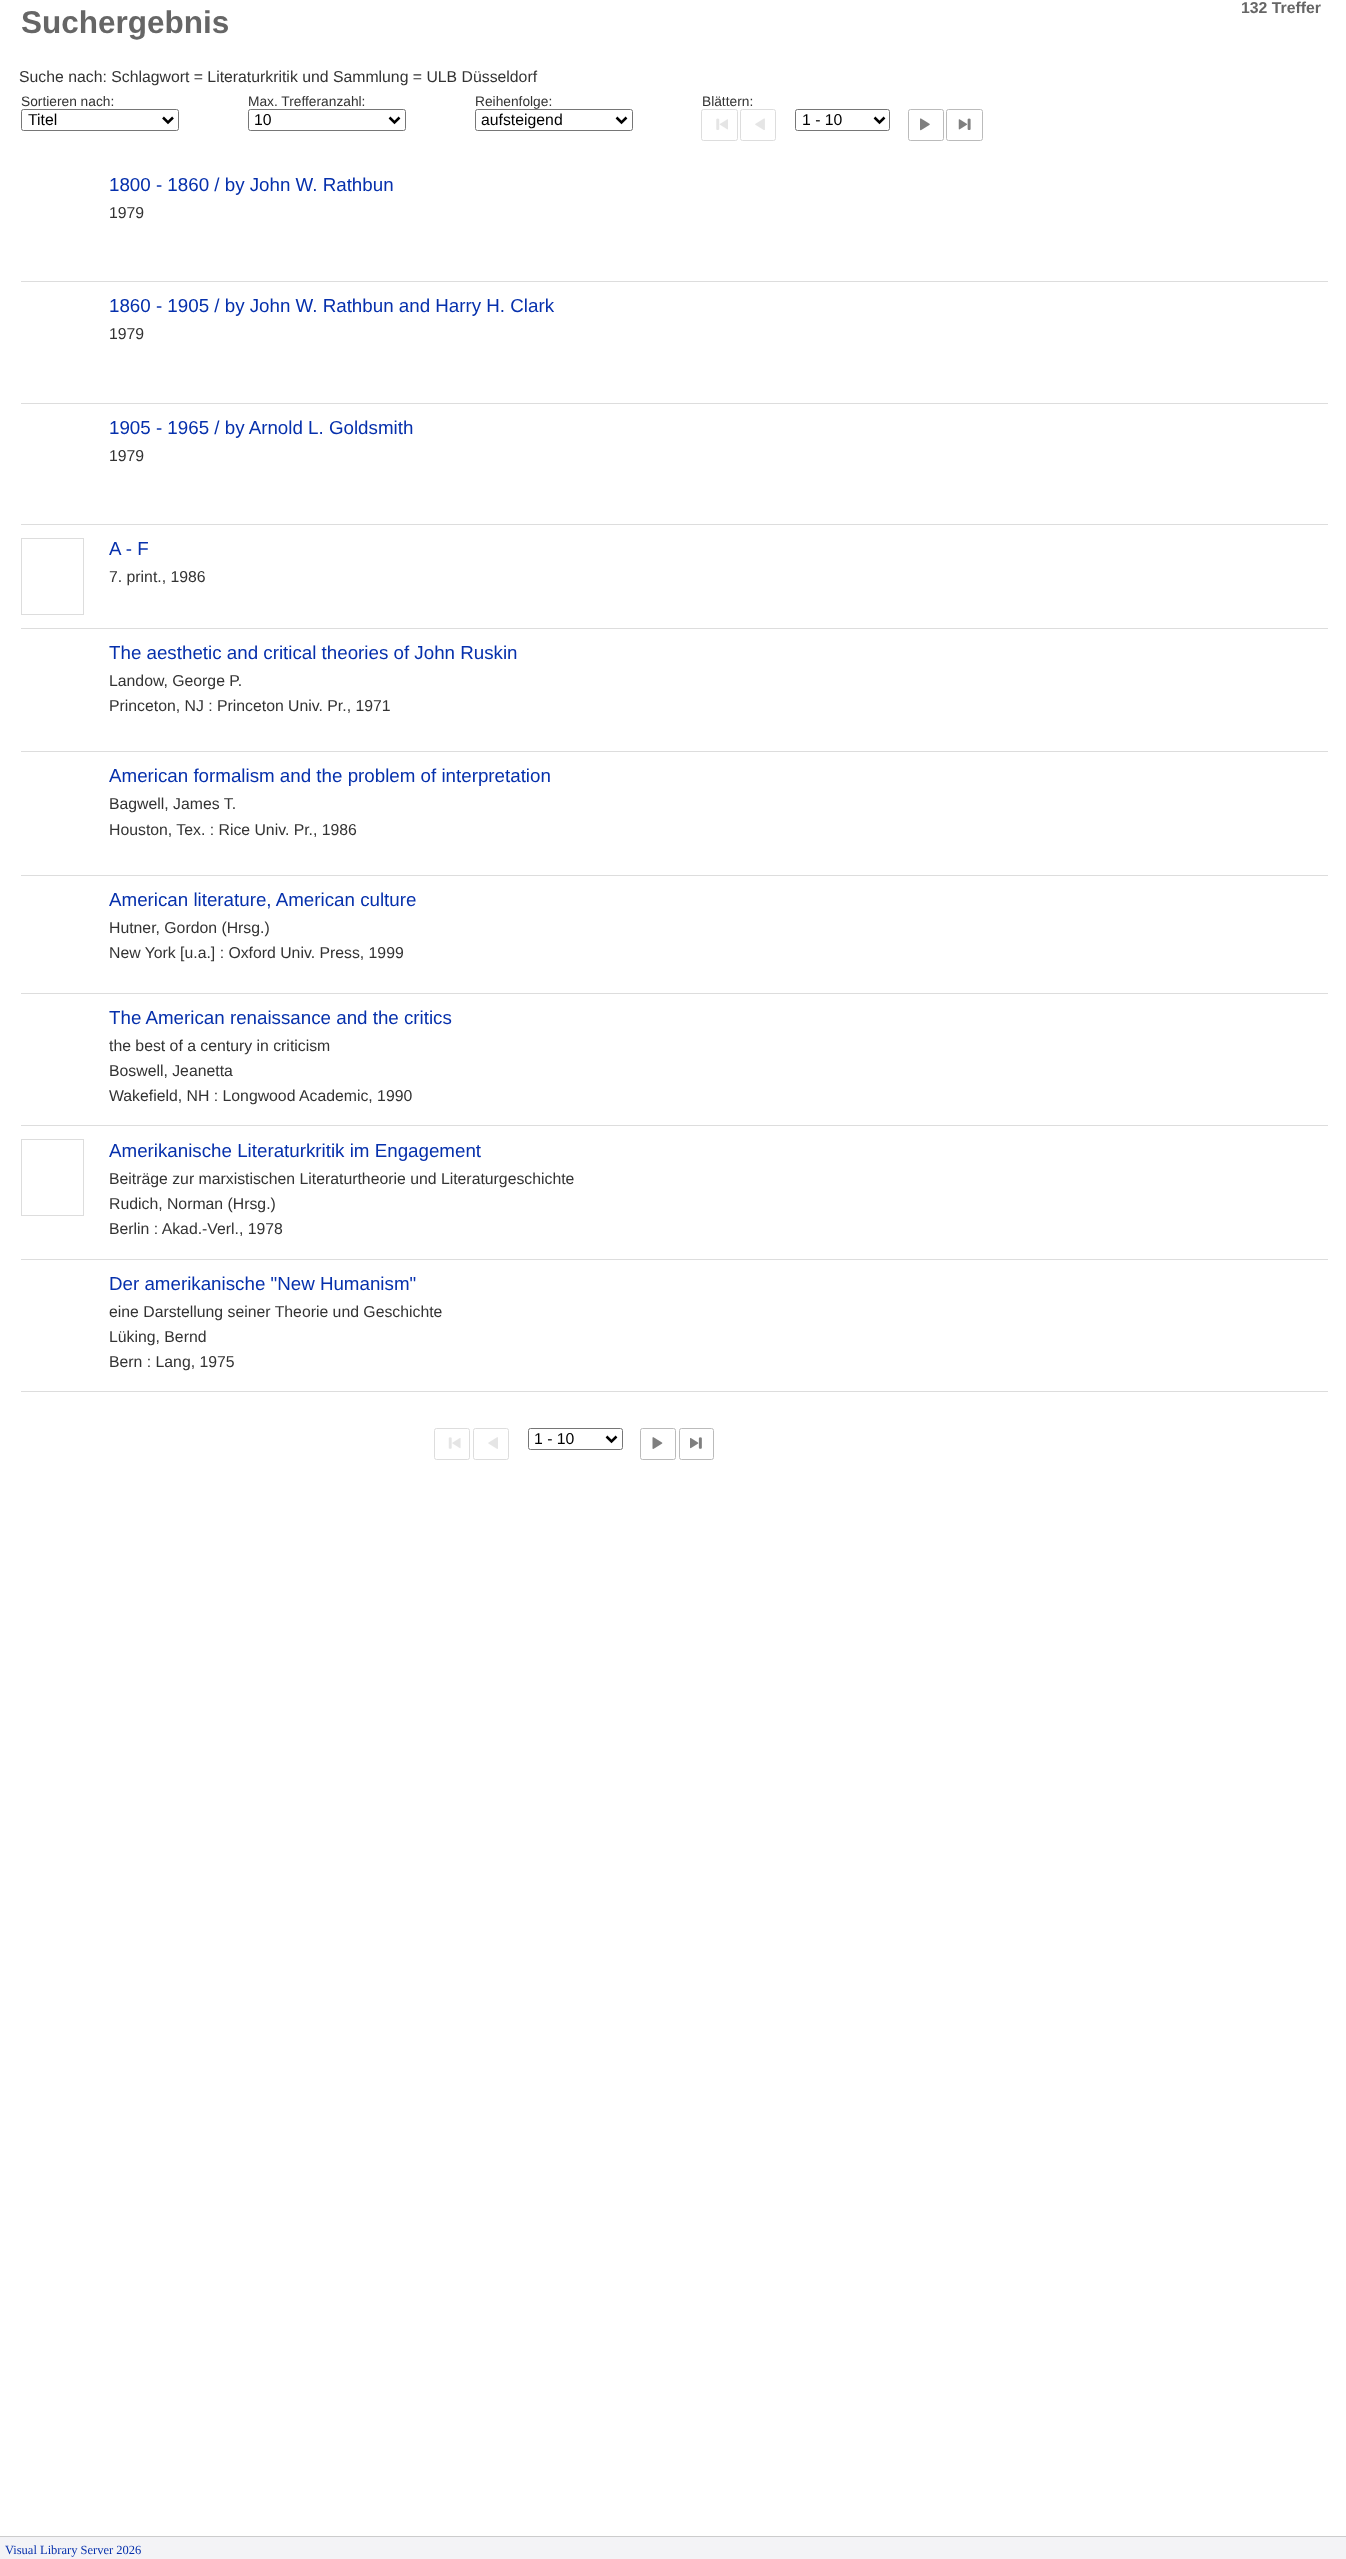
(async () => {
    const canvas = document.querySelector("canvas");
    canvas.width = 1346;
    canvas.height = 2559;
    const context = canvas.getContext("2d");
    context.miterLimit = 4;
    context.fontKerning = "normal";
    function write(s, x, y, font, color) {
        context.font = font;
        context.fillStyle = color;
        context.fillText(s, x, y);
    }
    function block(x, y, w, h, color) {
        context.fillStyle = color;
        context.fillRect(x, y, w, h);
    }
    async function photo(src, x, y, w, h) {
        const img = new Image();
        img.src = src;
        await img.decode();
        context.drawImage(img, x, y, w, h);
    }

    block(0, 0, 1346, 2559, "rgb(255, 255, 255)");
    write("132 Treffer", 1241, 13, "bold 15.8px Liberation Sans", "rgb(102, 102, 102)");
    write("Suchergebnis", 21, 33, "bold 31.5px Liberation Sans", "rgb(102, 102, 102)");
    write("Suche nach: Schlagwort = Literaturkritik und Sammlung = ULB Düsseldorf", 19, 82, "15.8px Liberation Sans", "rgb(51, 51, 51)");
    write("Sortieren nach:", 21, 106, "13.75px Liberation Sans", "rgb(51, 51, 51)");
    context.beginPath();
    context.roundRect(21.5, 109.5, 157, 21, 2);
    context.strokeStyle = "rgb(118, 118, 118)";
    context.stroke();
    context.beginPath();
    context.moveTo(163, 117.5);
    context.lineTo(168, 122.5);
    context.lineTo(173, 117.5);
    context.strokeStyle = "rgb(0, 0, 0)";
    context.lineWidth = 2.5;
    context.stroke();
    write("Titel", 28, 125, "15.8px Liberation Sans", "rgb(0, 0, 0)");
    write("Max. Trefferanzahl:", 248, 106, "13.75px Liberation Sans", "rgb(51, 51, 51)");
    context.beginPath();
    context.roundRect(248.5, 109.5, 157, 21, 2);
    context.strokeStyle = "rgb(118, 118, 118)";
    context.lineWidth = 1;
    context.stroke();
    context.beginPath();
    context.moveTo(389.5, 117.5);
    context.lineTo(394.5, 122.5);
    context.lineTo(399.5, 117.5);
    context.strokeStyle = "rgb(0, 0, 0)";
    context.lineWidth = 2.5;
    context.stroke();
    write("10", 254, 125, "15.8px Liberation Sans", "rgb(0, 0, 0)");
    write("Reihenfolge:", 475, 106, "13.75px Liberation Sans", "rgb(51, 51, 51)");
    context.beginPath();
    context.roundRect(475.5, 109.5, 157, 21, 2);
    context.strokeStyle = "rgb(118, 118, 118)";
    context.lineWidth = 1;
    context.stroke();
    context.beginPath();
    context.moveTo(616.5, 117.5);
    context.lineTo(621.5, 122.5);
    context.lineTo(626.5, 117.5);
    context.strokeStyle = "rgb(0, 0, 0)";
    context.lineWidth = 2.5;
    context.stroke();
    write("aufsteigend", 481, 125, "15.8px Liberation Sans", "rgb(0, 0, 0)");
    write("Blättern:", 702, 106, "13.75px Liberation Sans", "rgb(51, 51, 51)");
    context.beginPath();
    context.roundRect(701.5, 109.5, 36, 31, 2);
    context.strokeStyle = "rgb(221, 221, 221)";
    context.lineWidth = 1;
    context.stroke();
    await photo("media/1.png", 716, 118, 12, 12);
    context.beginPath();
    context.roundRect(740.5, 109.5, 35, 31, 2);
    context.stroke();
    await photo("media/2.png", 755, 118, 10, 12);
    context.beginPath();
    context.roundRect(795.5, 109.5, 94, 21, 2);
    context.strokeStyle = "rgb(118, 118, 118)";
    context.stroke();
    context.beginPath();
    context.moveTo(874.5, 117.5);
    context.lineTo(879.5, 122.5);
    context.lineTo(884.5, 117.5);
    context.strokeStyle = "rgb(0, 0, 0)";
    context.lineWidth = 2.5;
    context.stroke();
    write("1 - 10", 802, 125, "15.8px Liberation Sans", "rgb(0, 0, 0)");
    context.beginPath();
    context.roundRect(908.5, 109.5, 35, 31, 2);
    context.strokeStyle = "rgb(187, 187, 187)";
    context.lineWidth = 1;
    context.stroke();
    await photo("media/3.png", 920, 118, 10, 13);
    context.beginPath();
    context.roundRect(946.5, 109.5, 36, 31, 2);
    context.stroke();
    await photo("media/4.png", 958, 118, 13, 12);
    write("1800 - 1860 / by John W. Rathbun", 109, 191, "18.75px Liberation Sans", "rgb(6, 48, 172)");
    write("1979", 109, 218, "15.8px Liberation Sans", "rgb(51, 51, 51)");
    block(21, 281, 1307, 1, "rgb(221, 221, 221)");
    write("1860 - 1905 / by John W. Rathbun and Harry H. Clark", 109, 312, "18.75px Liberation Sans", "rgb(6, 48, 172)");
    write("1979", 109, 339, "15.8px Liberation Sans", "rgb(51, 51, 51)");
    block(21, 403, 1307, 1, "rgb(221, 221, 221)");
    write("1905 - 1965 / by Arnold L. Goldsmith", 109, 434, "18.75px Liberation Sans", "rgb(6, 48, 172)");
    write("1979", 109, 461, "15.8px Liberation Sans", "rgb(51, 51, 51)");
    block(21, 524, 1307, 1, "rgb(221, 221, 221)");
    context.strokeStyle = "rgb(221, 221, 221)";
    context.strokeRect(21.5, 538.5, 62, 76);
    write("A - F", 109, 555, "18.75px Liberation Sans", "rgb(6, 48, 172)");
    write("7. print., 1986", 109, 582, "15.8px Liberation Sans", "rgb(51, 51, 51)");
    block(21, 628, 1307, 1, "rgb(221, 221, 221)");
    write("The aesthetic and critical theories of John Ruskin", 109, 659, "18.75px Liberation Sans", "rgb(6, 48, 172)");
    write("Landow, George P.", 109, 686, "15.8px Liberation Sans", "rgb(51, 51, 51)");
    write("Princeton, NJ : Princeton Univ. Pr., 1971", 109, 711, "15.8px Liberation Sans", "rgb(51, 51, 51)");
    block(21, 751, 1307, 1, "rgb(221, 221, 221)");
    write("American formalism and the problem of interpretation", 109, 782, "18.75px Liberation Sans", "rgb(6, 48, 172)");
    write("Bagwell, James T.", 109, 809, "15.8px Liberation Sans", "rgb(51, 51, 51)");
    write("Houston, Tex. : Rice Univ. Pr., 1986", 109, 835, "15.8px Liberation Sans", "rgb(51, 51, 51)");
    block(21, 875, 1307, 1, "rgb(221, 221, 221)");
    write("American literature, American culture", 109, 906, "18.75px Liberation Sans", "rgb(6, 48, 172)");
    write("Hutner, Gordon (Hrsg.)", 109, 933, "15.8px Liberation Sans", "rgb(51, 51, 51)");
    write("New York [u.a.] : Oxford Univ. Press, 1999", 109, 958, "15.8px Liberation Sans", "rgb(51, 51, 51)");
    block(21, 993, 1307, 1, "rgb(221, 221, 221)");
    write("The American renaissance and the critics", 109, 1024, "18.75px Liberation Sans", "rgb(6, 48, 172)");
    write("the best of a century in criticism", 109, 1051, "15.8px Liberation Sans", "rgb(51, 51, 51)");
    write("Boswell, Jeanetta", 109, 1076, "15.8px Liberation Sans", "rgb(51, 51, 51)");
    write("Wakefield, NH : Longwood Academic, 1990", 109, 1101, "15.8px Liberation Sans", "rgb(51, 51, 51)");
    block(21, 1125, 1307, 1, "rgb(221, 221, 221)");
    context.strokeRect(21.5, 1139.5, 62, 76);
    write("Amerikanische Literaturkritik im Engagement", 109, 1157, "18.75px Liberation Sans", "rgb(6, 48, 172)");
    write("Beiträge zur marxistischen Literaturtheorie und Literaturgeschichte", 109, 1184, "15.8px Liberation Sans", "rgb(51, 51, 51)");
    write("Rudich, Norman (Hrsg.)", 109, 1209, "15.8px Liberation Sans", "rgb(51, 51, 51)");
    write("Berlin : Akad.-Verl., 1978", 109, 1234, "15.8px Liberation Sans", "rgb(51, 51, 51)");
    block(21, 1259, 1307, 1, "rgb(221, 221, 221)");
    block(21, 1391, 1307, 1, "rgb(221, 221, 221)");
    write("Der amerikanische \"New Humanism\"", 109, 1290, "18.75px Liberation Sans", "rgb(6, 48, 172)");
    write("eine Darstellung seiner Theorie und Geschichte", 109, 1317, "15.8px Liberation Sans", "rgb(51, 51, 51)");
    write("Lüking, Bernd", 109, 1342, "15.8px Liberation Sans", "rgb(51, 51, 51)");
    write("Bern : Lang, 1975", 109, 1367, "15.8px Liberation Sans", "rgb(51, 51, 51)");
    context.beginPath();
    context.roundRect(434.5, 1428.5, 35, 31, 2);
    context.stroke();
    await photo("media/5.png", 448, 1437, 13, 12);
    context.beginPath();
    context.roundRect(473.5, 1428.5, 35, 31, 2);
    context.stroke();
    await photo("media/6.png", 488, 1437, 10, 12);
    context.beginPath();
    context.roundRect(528.5, 1428.5, 94, 21, 2);
    context.strokeStyle = "rgb(118, 118, 118)";
    context.stroke();
    context.beginPath();
    context.moveTo(606.5, 1436.5);
    context.lineTo(611.5, 1441.5);
    context.lineTo(616.5, 1436.5);
    context.strokeStyle = "rgb(0, 0, 0)";
    context.lineWidth = 2.5;
    context.stroke();
    write("1 - 10", 534, 1444, "15.8px Liberation Sans", "rgb(0, 0, 0)");
    context.beginPath();
    context.roundRect(640.5, 1428.5, 35, 31, 2);
    context.strokeStyle = "rgb(187, 187, 187)";
    context.lineWidth = 1;
    context.stroke();
    await photo("media/7.png", 652, 1437, 11, 12);
    context.beginPath();
    context.roundRect(679.5, 1428.5, 34, 31, 2);
    context.stroke();
    await photo("media/8.png", 690, 1437, 12, 12);
    block(0, 2537, 1346, 22, "rgb(243, 243, 246)");
    block(0, 2536, 1346, 1, "rgb(204, 204, 204)");
    write("Visual Library Server 2026", 5, 2554, "12.5px Liberation Serif", "rgb(6, 48, 172)");
})();
